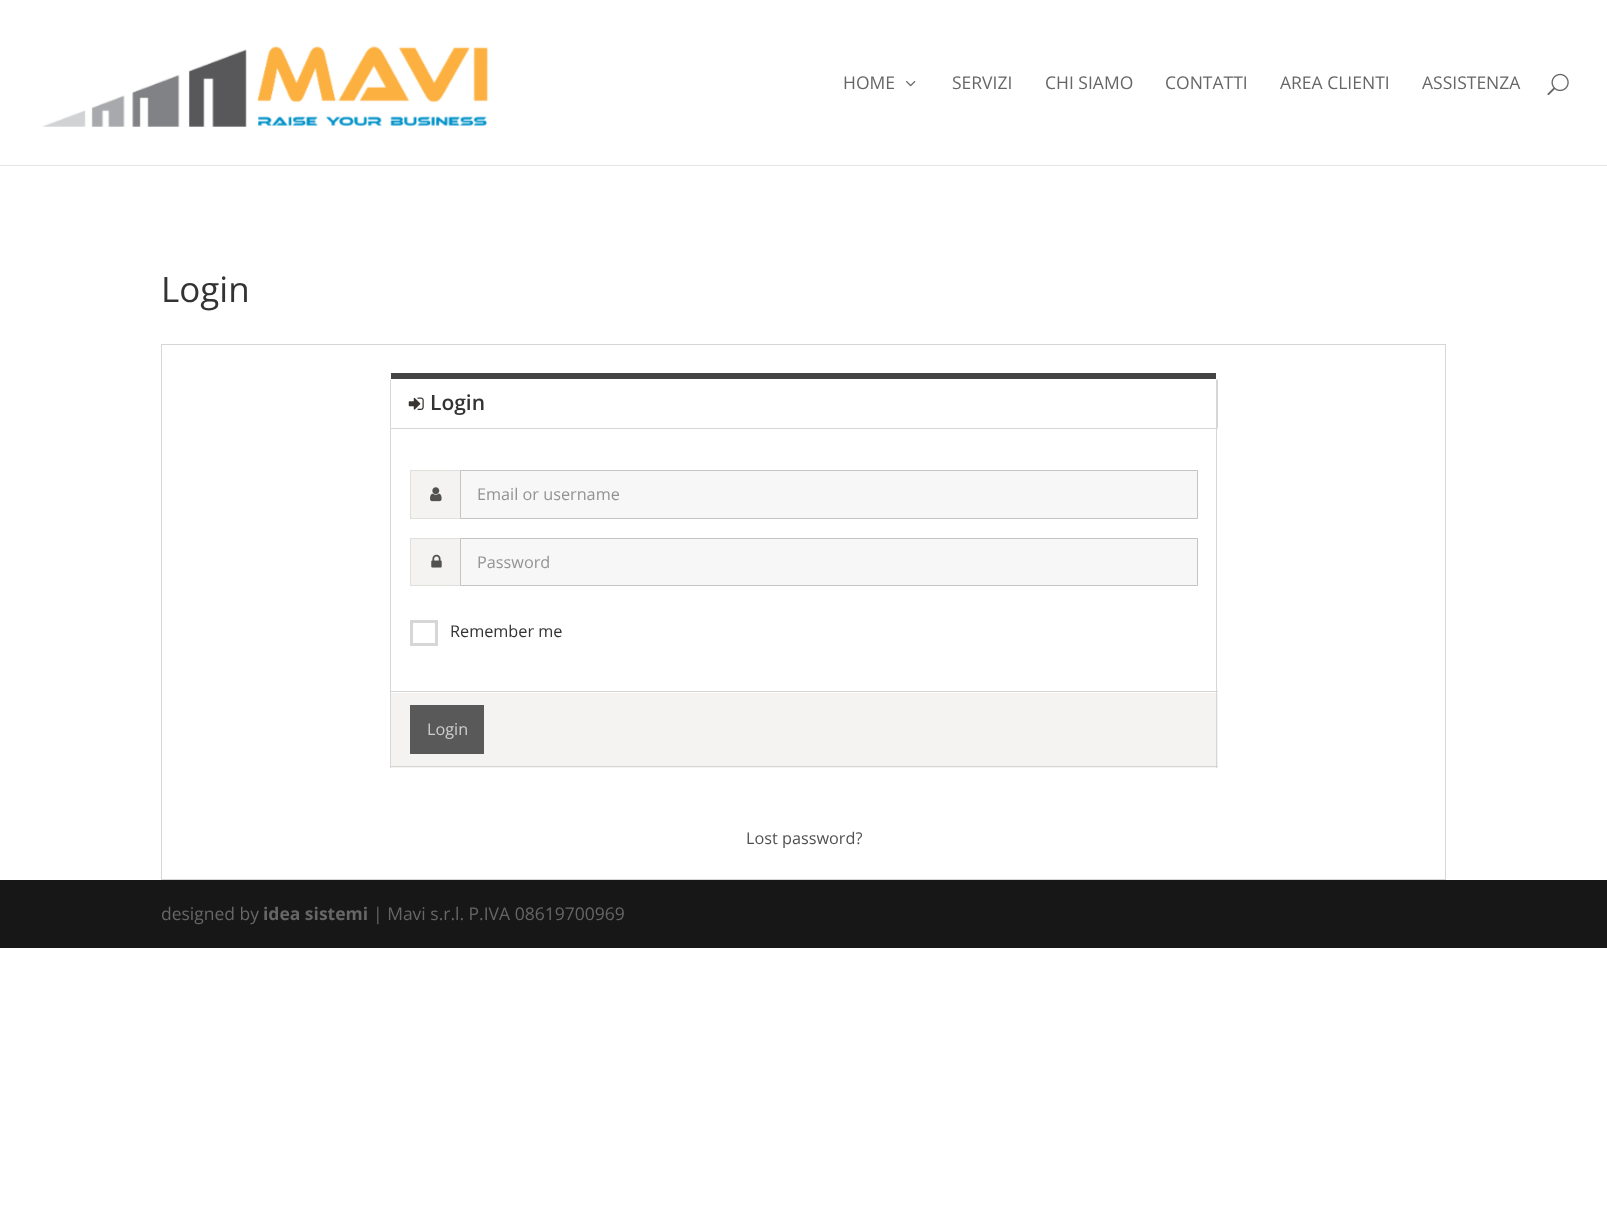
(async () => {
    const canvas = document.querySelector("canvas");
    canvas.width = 1607;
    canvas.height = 1216;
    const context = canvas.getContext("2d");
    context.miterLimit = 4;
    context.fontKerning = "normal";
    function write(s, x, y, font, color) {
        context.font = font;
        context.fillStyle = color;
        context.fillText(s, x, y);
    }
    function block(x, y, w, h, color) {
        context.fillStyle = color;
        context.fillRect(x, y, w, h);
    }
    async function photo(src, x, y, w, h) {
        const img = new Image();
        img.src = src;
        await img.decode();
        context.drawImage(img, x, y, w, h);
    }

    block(0, 0, 1607, 1216, "rgb(255, 255, 255)");
    context.fillStyle = "rgb(230, 230, 230)";
    context.beginPath();
    context.moveTo(0, 165);
    context.lineTo(0, 166);
    context.lineTo(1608, 166);
    context.lineTo(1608, 1);
    context.lineTo(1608, 165);
    context.closePath();
    context.fill();
    await photo("media/1.png", 42, 46, 447, 81);
    write("HOME", 843, 89, "17.5px Open Sans", "rgb(102, 102, 102)");
    await photo("media/2.png", 906, 81, 10, 6);
    write("SERVIZI", 952, 89, "17.5px Open Sans", "rgb(102, 102, 102)");
    write("CHI SIAMO", 1045, 89, "17.5px Open Sans", "rgb(102, 102, 102)");
    write("CONTATTI", 1165, 89, "17.5px Open Sans", "rgb(102, 102, 102)");
    write("AREA CLIENTI", 1280, 89, "17.5px Open Sans", "rgb(102, 102, 102)");
    write("ASSISTENZA", 1422, 89, "17.5px Open Sans", "rgb(102, 102, 102)");
    await photo("media/3.png", 1547, 73, 22, 23);
    write("Login", 161, 302, "35px Open Sans", "rgb(51, 51, 51)");
    context.strokeStyle = "rgb(214, 214, 214)";
    context.strokeRect(161.5, 344.5, 1284, 535);
    block(391, 373, 825, 6, "rgb(68, 68, 68)");
    context.fillStyle = "rgb(214, 214, 214)";
    context.beginPath();
    context.moveTo(1218, 379);
    context.lineTo(1216, 380);
    context.lineTo(1216, 427);
    context.lineTo(1218, 429);
    context.closePath();
    context.fill();
    context.beginPath();
    context.moveTo(1218, 429);
    context.lineTo(1216, 427);
    context.lineTo(1216, 428);
    context.lineTo(391, 428);
    context.lineTo(390, 429);
    context.closePath();
    context.fill();
    context.beginPath();
    context.moveTo(391, 380);
    context.lineTo(390, 379);
    context.lineTo(390, 429);
    context.lineTo(391, 428);
    context.closePath();
    context.fill();
    await photo("media/4.png", 408, 397, 16, 13);
    write("Login", 430, 410, "600 21px Open Sans", "rgb(51, 51, 51)");
    context.fillStyle = "rgb(244, 243, 242)";
    context.beginPath();
    context.roundRect(390, 693, 828, 75, [0, 0, 1, 1]);
    context.fill();
    block(1216, 429, 1, 339, "rgb(214, 214, 214)");
    block(390, 691, 828, 1, "rgb(214, 214, 214)");
    block(390, 429, 1, 264, "rgb(214, 214, 214)");
    block(411, 471, 49, 47, "rgb(244, 243, 242)");
    block(410, 470, 50, 1, "rgb(225, 223, 220)");
    block(410, 518, 50, 1, "rgb(225, 223, 220)");
    block(410, 470, 1, 49, "rgb(225, 223, 220)");
    await photo("media/5.png", 430, 487, 12, 15);
    context.fillStyle = "rgb(247, 247, 247)";
    context.beginPath();
    context.rect(460.5, 470.5, 737, 48);
    context.fill();
    context.strokeStyle = "rgb(196, 196, 196)";
    context.stroke();
    write("Email or username", 477, 500, "16.25px Open Sans", "rgb(147, 147, 147)");
    block(411, 539, 49, 46, "rgb(244, 243, 242)");
    block(410, 538, 50, 1, "rgb(225, 223, 220)");
    block(410, 585, 50, 1, "rgb(225, 223, 220)");
    block(410, 538, 1, 48, "rgb(225, 223, 220)");
    await photo("media/6.png", 431, 554, 11, 14);
    context.fillStyle = "rgb(247, 247, 247)";
    context.beginPath();
    context.rect(460.5, 538.5, 737, 47);
    context.fill();
    context.stroke();
    write("Password", 477, 568, "16.25px Open Sans", "rgb(147, 147, 147)");
    context.beginPath();
    context.rect(411.5, 621.5, 25, 23);
    context.strokeStyle = "rgb(214, 214, 214)";
    context.lineWidth = 3;
    context.stroke();
    write("Remember me", 450, 637, "16.25px Open Sans", "rgb(51, 51, 51)");
    block(391, 766, 827, 1, "rgb(214, 214, 214)");
    block(390, 693, 1, 75, "rgb(214, 214, 214)");
    block(410, 705, 74, 49, "rgb(89, 89, 89)");
    write("Login", 427, 735, "16.25px Open Sans", "rgb(208, 207, 207)");
    write("Lost password?", 746, 844, "16.25px Open Sans", "rgb(81, 81, 81)");
    block(0, 880, 1607, 68, "rgb(23, 23, 23)");
    write("designed by", 161, 920, "17.5px Open Sans", "rgb(102, 102, 102)");
    write("idea sistemi", 263, 920, "bold 17.5px Open Sans", "rgb(102, 102, 102)");
    write("| Mavi s.r.l. P.IVA 08619700969", 373, 920, "17.5px Open Sans", "rgb(102, 102, 102)");
})();
